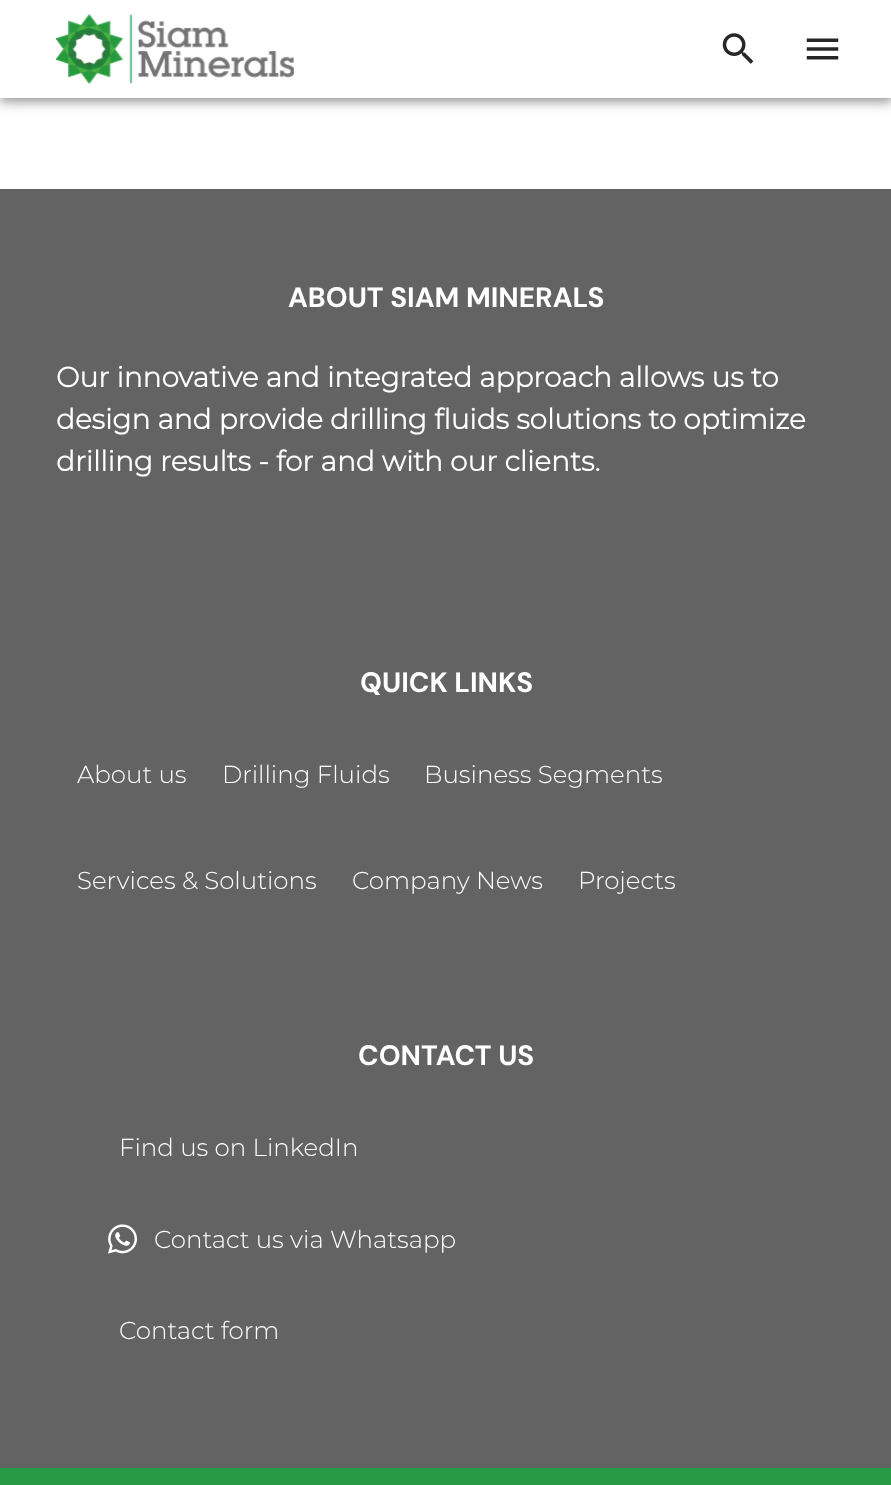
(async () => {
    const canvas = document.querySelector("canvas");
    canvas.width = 891;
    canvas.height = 1485;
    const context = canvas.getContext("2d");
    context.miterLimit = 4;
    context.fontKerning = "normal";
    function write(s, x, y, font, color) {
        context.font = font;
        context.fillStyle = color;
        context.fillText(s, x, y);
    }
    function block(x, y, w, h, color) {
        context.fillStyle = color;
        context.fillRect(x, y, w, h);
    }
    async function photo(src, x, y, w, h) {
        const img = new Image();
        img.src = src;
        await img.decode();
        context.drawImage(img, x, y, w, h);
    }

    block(0, 0, 891, 1485, "rgb(255, 255, 255)");
    context.fillStyle = "rgba(0, 0, 0, 0.12)";
    context.filter = "blur(9px)";
    context.beginPath();
    context.rect(0, 2, 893, 98);
    context.fill();
    context.filter = "none";
    context.fillStyle = "rgba(0, 0, 0, 0.14)";
    context.filter = "blur(4.5px)";
    context.beginPath();
    context.rect(0, 7, 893, 98);
    context.fill();
    context.filter = "none";
    context.fillStyle = "rgba(0, 0, 0, 0.2)";
    context.filter = "blur(3.5px)";
    context.beginPath();
    context.rect(2, 5, 889, 95);
    context.fill();
    context.filter = "none";
    block(0, 0, 891, 98, "rgb(255, 255, 255)");
    await photo("media/1.png", 56, 14, 238, 70);
    await photo("media/2.png", 722, 33, 32, 31);
    await photo("media/3.png", 806, 38, 33, 22);
    block(0, 189, 891, 1279, "rgb(99, 99, 99)");
    write("ABOUT SIAM MINERALS", 288, 307, "bold 28px DM Sans", "rgb(255, 255, 255)");
    write("Our innovative and integrated approach allows us to", 56, 387, "bold 28px Montserrat", "rgb(255, 255, 255)");
    write("design and provide drilling fluids solutions to optimize", 56, 429, "bold 28px Montserrat", "rgb(255, 255, 255)");
    write("drilling results - for and with our clients.", 56, 471, "bold 28px Montserrat", "rgb(255, 255, 255)");
    write("QUICK LINKS", 360, 692, "bold 28px DM Sans", "rgb(255, 255, 255)");
    write("About us", 77, 783, "100 24.5px Montserrat", "rgb(255, 255, 255)");
    write("Drilling Fluids", 222, 783, "100 24.5px Montserrat", "rgb(255, 255, 255)");
    write("Business Segments", 424, 783, "100 24.5px Montserrat", "rgb(255, 255, 255)");
    write("Services & Solutions", 77, 889, "100 24.5px Montserrat", "rgb(255, 255, 255)");
    write("Company News", 352, 889, "100 24.5px Montserrat", "rgb(255, 255, 255)");
    write("Projects", 578, 889, "100 24.5px Montserrat", "rgb(255, 255, 255)");
    write("CONTACT US", 358, 1065, "bold 28px DM Sans", "rgb(255, 255, 255)");
    write("Find us on LinkedIn", 119, 1156, "100 24.5px Montserrat", "rgb(255, 255, 255)");
    await photo("media/4.png", 108, 1224, 29, 30);
    write("Contact us via Whatsapp", 154, 1248, "100 24.5px Montserrat", "rgb(255, 255, 255)");
    write("Contact form", 119, 1339, "100 24.5px Montserrat", "rgb(255, 255, 255)");
    block(0, 1468, 891, 17, "rgb(38, 154, 71)");
})();
